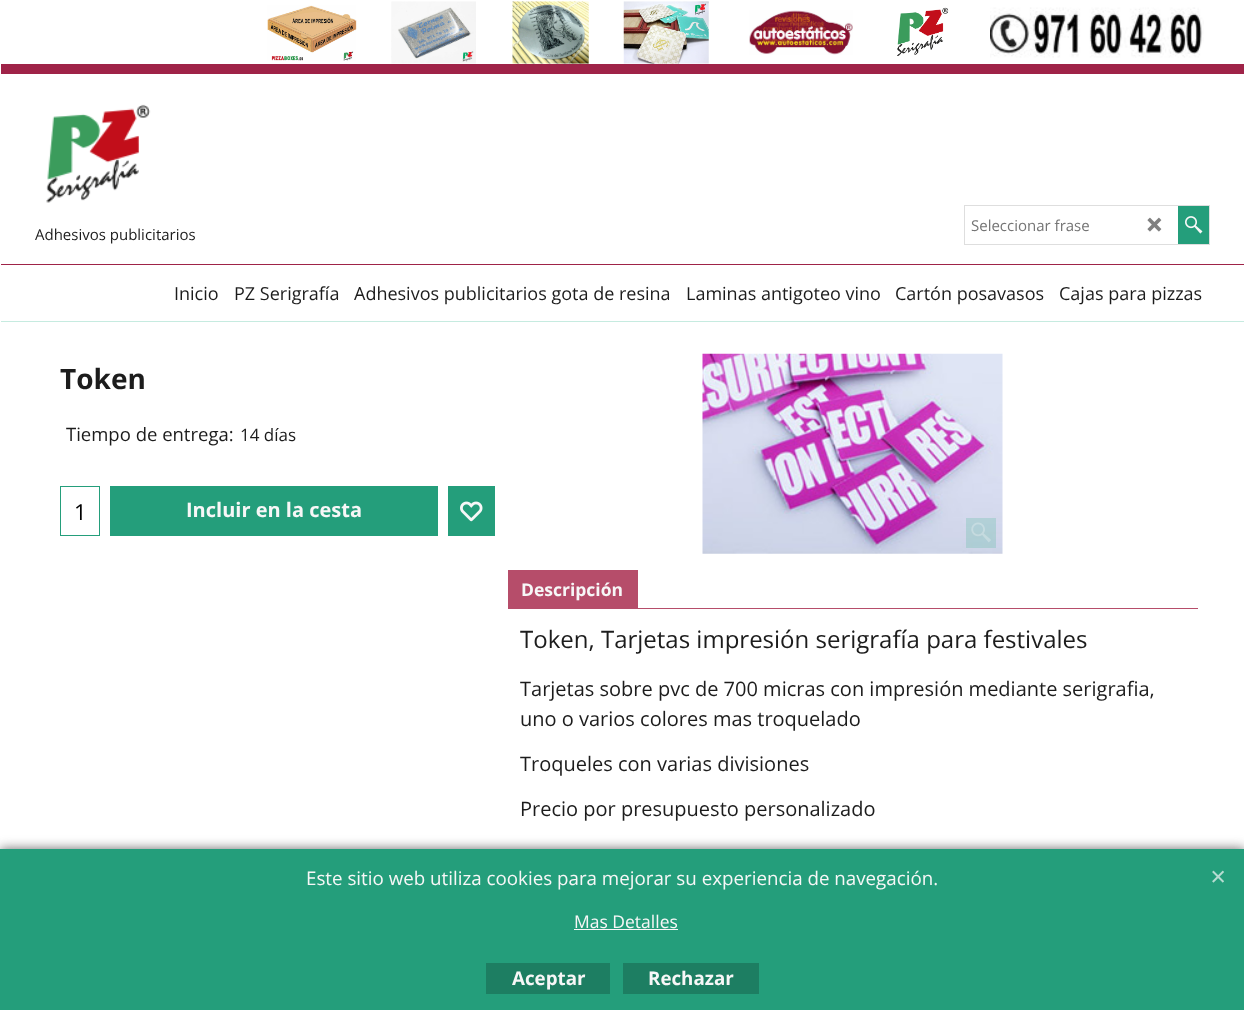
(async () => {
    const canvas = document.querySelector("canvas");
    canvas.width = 1244;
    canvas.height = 1010;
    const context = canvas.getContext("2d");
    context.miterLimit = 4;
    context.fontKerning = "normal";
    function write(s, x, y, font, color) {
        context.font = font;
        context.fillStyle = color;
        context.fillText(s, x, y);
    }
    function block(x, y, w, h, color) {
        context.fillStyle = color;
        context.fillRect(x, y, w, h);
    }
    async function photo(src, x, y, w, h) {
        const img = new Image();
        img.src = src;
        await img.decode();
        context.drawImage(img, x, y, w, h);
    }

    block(0, 0, 1244, 1010, "rgb(255, 255, 255)");
    await photo("media/1.png", 267, 5, 90, 56);
    await photo("media/2.png", 391, 1, 85, 63);
    await photo("media/3.png", 512, 1, 77, 63);
    await photo("media/4.png", 623, 1, 86, 63);
    await photo("media/5.png", 749, 10, 104, 45);
    await photo("media/6.png", 897, 7, 52, 49);
    await photo("media/7.png", 990, 7, 214, 51);
    block(1, 64, 1243, 10, "rgb(159, 35, 72)");
    block(1, 264, 1243, 1, "rgb(159, 35, 72)");
    block(964, 205, 246, 40, "rgb(222, 222, 222)");
    block(965, 206, 213, 38, "rgb(255, 255, 255)");
    write("Seleccionar frase", 971, 231, "15px Open Sans", "rgb(117, 117, 117)");
    await photo("media/8.png", 1147, 217, 15, 15);
    block(1178, 206, 31, 38, "rgb(36, 158, 123)");
    await photo("media/9.png", 1185, 216, 18, 18);
    await photo("media/10.png", 46, 104, 105, 99);
    write("Adhesivos publicitarios", 35, 240, "15px Open Sans", "rgb(28, 28, 28)");
    write("Inicio", 174, 300, "18px Open Sans", "rgb(28, 28, 28)");
    write("PZ Serigrafía", 234, 300, "18px Open Sans", "rgb(28, 28, 28)");
    write("Adhesivos publicitarios gota de resina", 354, 300, "18px Open Sans", "rgb(28, 28, 28)");
    write("Laminas antigoteo vino", 686, 300, "18px Open Sans", "rgb(28, 28, 28)");
    write("Cartón posavasos", 895, 300, "18px Open Sans", "rgb(28, 28, 28)");
    write("Cajas para pizzas", 1059, 300, "18px Open Sans", "rgb(28, 28, 28)");
    block(1, 321, 1243, 1, "rgb(198, 235, 224)");
    write("Token", 60, 389, "bold 28px Open Sans", "rgb(28, 28, 28)");
    write("Tiempo de entrega:", 66, 441, "18.5px Open Sans", "rgb(28, 28, 28)");
    write("14 días", 240, 441, "17px Open Sans", "rgb(28, 28, 28)");
    context.strokeStyle = "rgb(36, 158, 123)";
    context.strokeRect(60.5, 486.5, 39, 49);
    write("1", 74, 520, "22px Open Sans", "rgb(0, 0, 0)");
    block(110, 486, 328, 50, "rgb(36, 158, 123)");
    write("Incluir en la cesta", 186, 517, "bold 20px Open Sans", "rgb(247, 247, 247)");
    block(448, 486, 47, 50, "rgb(36, 158, 123)");
    await photo("media/11.png", 460, 501, 23, 21);
    await photo("media/12.png", 702, 353, 301, 201);
    block(966, 518, 30, 30, "rgba(101, 190, 164, 0.3)");
    await photo("media/13.png", 971, 522, 20, 21);
    block(508, 570, 130, 39, "rgb(182, 77, 106)");
    write("Descripción", 521, 596, "bold 17.5px Open Sans", "rgb(247, 247, 247)");
    block(638, 608, 560, 1, "rgb(182, 77, 106)");
    write("Token, Tarjetas impresión serigrafía para festivales", 520, 648, "24px Open Sans", "rgb(28, 28, 28)");
    write("Tarjetas sobre pvc de 700 micras con impresión mediante serigrafia,", 520, 696, "20px Open Sans", "rgb(28, 28, 28)");
    write("uno o varios colores mas troquelado", 520, 726, "20px Open Sans", "rgb(28, 28, 28)");
    write("Troqueles con varias divisiones", 520, 771, "20px Open Sans", "rgb(28, 28, 28)");
    write("Precio por presupuesto personalizado", 520, 816, "20px Open Sans", "rgb(28, 28, 28)");
    context.fillStyle = "rgb(102, 102, 102)";
    context.filter = "blur(6px)";
    context.beginPath();
    context.rect(0, 849, 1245, 161);
    context.fill();
    context.filter = "none";
    block(0, 849, 1244, 161, "rgb(36, 158, 123)");
    write("Este sitio web utiliza cookies para mejorar su experiencia de navegación.", 306, 885, "18.75px Open Sans", "rgb(247, 247, 247)");
    write("Mas Detalles", 574, 928, "17.5px Open Sans", "rgb(247, 247, 247)");
    block(574, 929, 104, 1, "rgb(247, 247, 247)");
    await photo("media/14.png", 1212, 870, 12, 13);
    block(486, 963, 124, 31, "rgb(29, 126, 98)");
    write("Aceptar", 512, 985, "bold 18.75px Open Sans", "rgb(247, 247, 247)");
    block(623, 963, 136, 31, "rgb(29, 126, 98)");
    write("Rechazar", 648, 985, "bold 18.75px Open Sans", "rgb(247, 247, 247)");
})();
